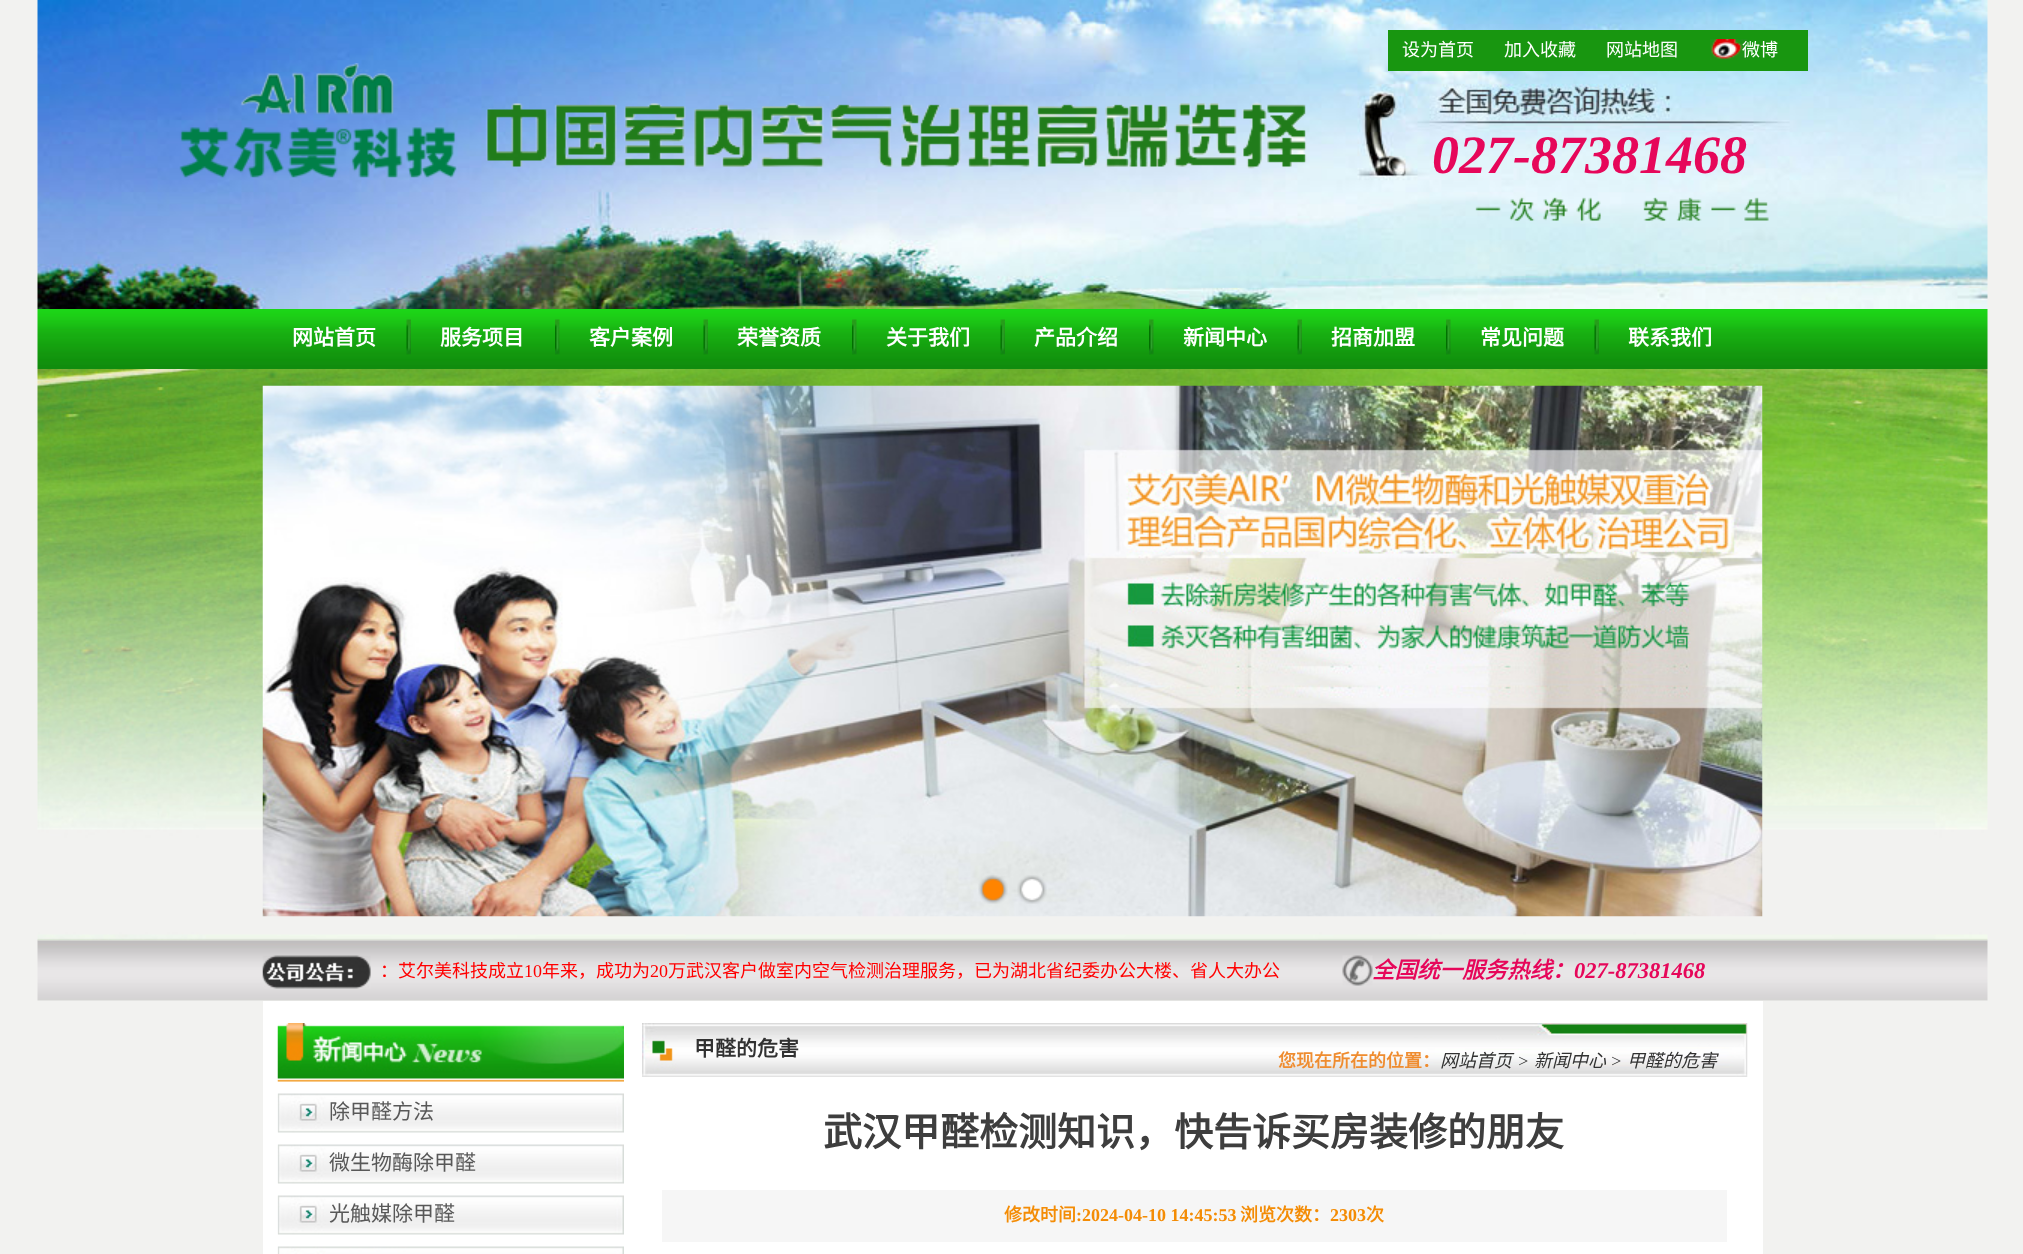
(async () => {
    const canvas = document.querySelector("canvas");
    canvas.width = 2023;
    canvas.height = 1254;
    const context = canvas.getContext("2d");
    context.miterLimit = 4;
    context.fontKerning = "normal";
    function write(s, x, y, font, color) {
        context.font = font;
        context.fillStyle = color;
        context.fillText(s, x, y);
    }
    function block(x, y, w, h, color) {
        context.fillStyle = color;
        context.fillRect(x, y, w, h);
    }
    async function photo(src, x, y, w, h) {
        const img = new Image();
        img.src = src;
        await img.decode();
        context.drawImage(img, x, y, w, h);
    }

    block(0, 0, 2023, 1254, "rgb(242, 242, 240)");
    await photo("media/1.png", 37, 0, 1951, 309);
    block(1388, 30, 420, 41, "rgb(24, 150, 16)");
    write("设为首页", 1402, 56, "18px Noto Sans CJK SC", "rgb(255, 255, 255)");
    write("加入收藏", 1504, 56, "18px Noto Sans CJK SC", "rgb(255, 255, 255)");
    write("网站地图", 1606, 56, "18px Noto Sans CJK SC", "rgb(255, 255, 255)");
    await photo("media/2.png", 1710, 39, 38, 21);
    write("微博", 1742, 56, "18px Noto Sans CJK SC", "rgb(255, 255, 255)");
    await photo("media/3.png", 179, 63, 1128, 115);
    await photo("media/4.png", 1475, 197, 294, 24);
    write("027-87381468", 1432, 173, "italic bold 54px Liberation Serif", "rgb(230, 7, 90)");
    await photo("media/5.png", 37, 309, 1951, 60);
    write("网站首页", 292, 345, "bold 21px Noto Sans CJK SC", "rgb(255, 255, 255)");
    await photo("media/6.png", 406, 319, 5, 36);
    write("服务项目", 440, 345, "bold 21px Noto Sans CJK SC", "rgb(255, 255, 255)");
    await photo("media/7.png", 555, 319, 5, 36);
    write("客户案例", 589, 345, "bold 21px Noto Sans CJK SC", "rgb(255, 255, 255)");
    await photo("media/6.png", 703, 319, 5, 36);
    write("荣誉资质", 737, 345, "bold 21px Noto Sans CJK SC", "rgb(255, 255, 255)");
    await photo("media/7.png", 852, 319, 5, 36);
    write("关于我们", 886, 345, "bold 21px Noto Sans CJK SC", "rgb(255, 255, 255)");
    await photo("media/8.png", 1000, 319, 5, 36);
    write("产品介绍", 1034, 345, "bold 21px Noto Sans CJK SC", "rgb(255, 255, 255)");
    await photo("media/9.png", 1149, 319, 5, 36);
    write("新闻中心", 1183, 345, "bold 21px Noto Sans CJK SC", "rgb(255, 255, 255)");
    await photo("media/6.png", 1297, 319, 5, 36);
    write("招商加盟", 1331, 345, "bold 21px Noto Sans CJK SC", "rgb(255, 255, 255)");
    await photo("media/7.png", 1446, 319, 5, 36);
    write("常见问题", 1480, 345, "bold 21px Noto Sans CJK SC", "rgb(255, 255, 255)");
    await photo("media/8.png", 1594, 319, 5, 36);
    write("联系我们", 1628, 345, "bold 21px Noto Sans CJK SC", "rgb(255, 255, 255)");
    await photo("media/10.png", 37, 369, 1951, 572);
    await photo("media/11.png", 262, 385, 1501, 532);
    await photo("media/12.png", 978, 875, 30, 29);
    await photo("media/13.png", 1017, 875, 30, 29);
    await photo("media/14.png", 37, 940, 1951, 61);
    await photo("media/15.png", 262, 955, 109, 34);
    write("：艾尔美科技成立", 380, 977, "18px Noto Sans CJK SC", "rgb(255, 0, 0)");
    write("10", 524, 977, "18px Liberation Serif", "rgb(255, 0, 0)");
    write("年来，成功为", 542, 977, "18px Noto Sans CJK SC", "rgb(255, 0, 0)");
    write("20", 650, 977, "18px Liberation Serif", "rgb(255, 0, 0)");
    write("万武汉客户做室内空气检测治理服务，已为湖北省纪委办公大楼、省人大办公", 668, 977, "18px Noto Sans CJK SC", "rgb(255, 0, 0)");
    await photo("media/16.png", 1342, 955, 31, 31);
    write("全国统一服务热线：", 1372, 978, "italic bold 22.5px Noto Sans CJK SC", "rgb(230, 7, 90)");
    write("027-87381468", 1574, 978, "italic bold 22.5px Liberation Serif", "rgb(230, 7, 90)");
    block(263, 1001, 1500, 253, "rgb(255, 255, 255)");
    await photo("media/17.png", 277, 1023, 347, 59);
    await photo("media/18.png", 277, 1093, 347, 40);
    write("除甲醛方法", 329, 1119, "21px Noto Sans CJK SC", "rgb(88, 88, 88)");
    await photo("media/18.png", 277, 1144, 347, 40);
    write("微生物酶除甲醛", 329, 1170, "21px Noto Sans CJK SC", "rgb(88, 88, 88)");
    await photo("media/18.png", 277, 1195, 347, 40);
    write("光触媒除甲醛", 329, 1221, "21px Noto Sans CJK SC", "rgb(88, 88, 88)");
    await photo("media/19.png", 277, 1246, 347, 8);
    await photo("media/20.png", 642, 1023, 1106, 54);
    write("甲醛的危害", 694, 1056, "bold 21px Noto Sans CJK SC", "rgb(50, 50, 50)");
    write("您现在所在的位置：", 1278, 1067, "bold 18px Noto Sans CJK SC", "rgb(239, 140, 47)");
    write("网站首页", 1440, 1067, "italic 18px Noto Sans CJK SC", "rgb(50, 50, 50)");
    write(">", 1517, 1067, "italic 18px Liberation Serif", "rgb(50, 50, 50)");
    write("新闻中心", 1534, 1067, "italic 18px Noto Sans CJK SC", "rgb(50, 50, 50)");
    write(">", 1610, 1067, "italic 18px Liberation Serif", "rgb(50, 50, 50)");
    write("甲醛的危害", 1627, 1067, "italic 18px Noto Sans CJK SC", "rgb(50, 50, 50)");
    write("武汉甲醛检测知识，快告诉买房装修的朋友", 823, 1146, "bold 39px Noto Sans CJK SC", "rgb(62, 62, 62)");
    block(662, 1190, 1065, 52, "rgb(246, 246, 246)");
    write("修改时间", 1004, 1221, "bold 18px Noto Sans CJK SC", "rgb(244, 140, 5)");
    write(":2024-04-10 14:45:53", 1076, 1221, "bold 18px Liberation Serif", "rgb(244, 140, 5)");
    write("浏览次数：", 1240, 1221, "bold 18px Noto Sans CJK SC", "rgb(244, 140, 5)");
    write("2303", 1330, 1221, "bold 18px Liberation Serif", "rgb(244, 140, 5)");
    write("次", 1366, 1221, "bold 18px Noto Sans CJK SC", "rgb(244, 140, 5)");
})();
